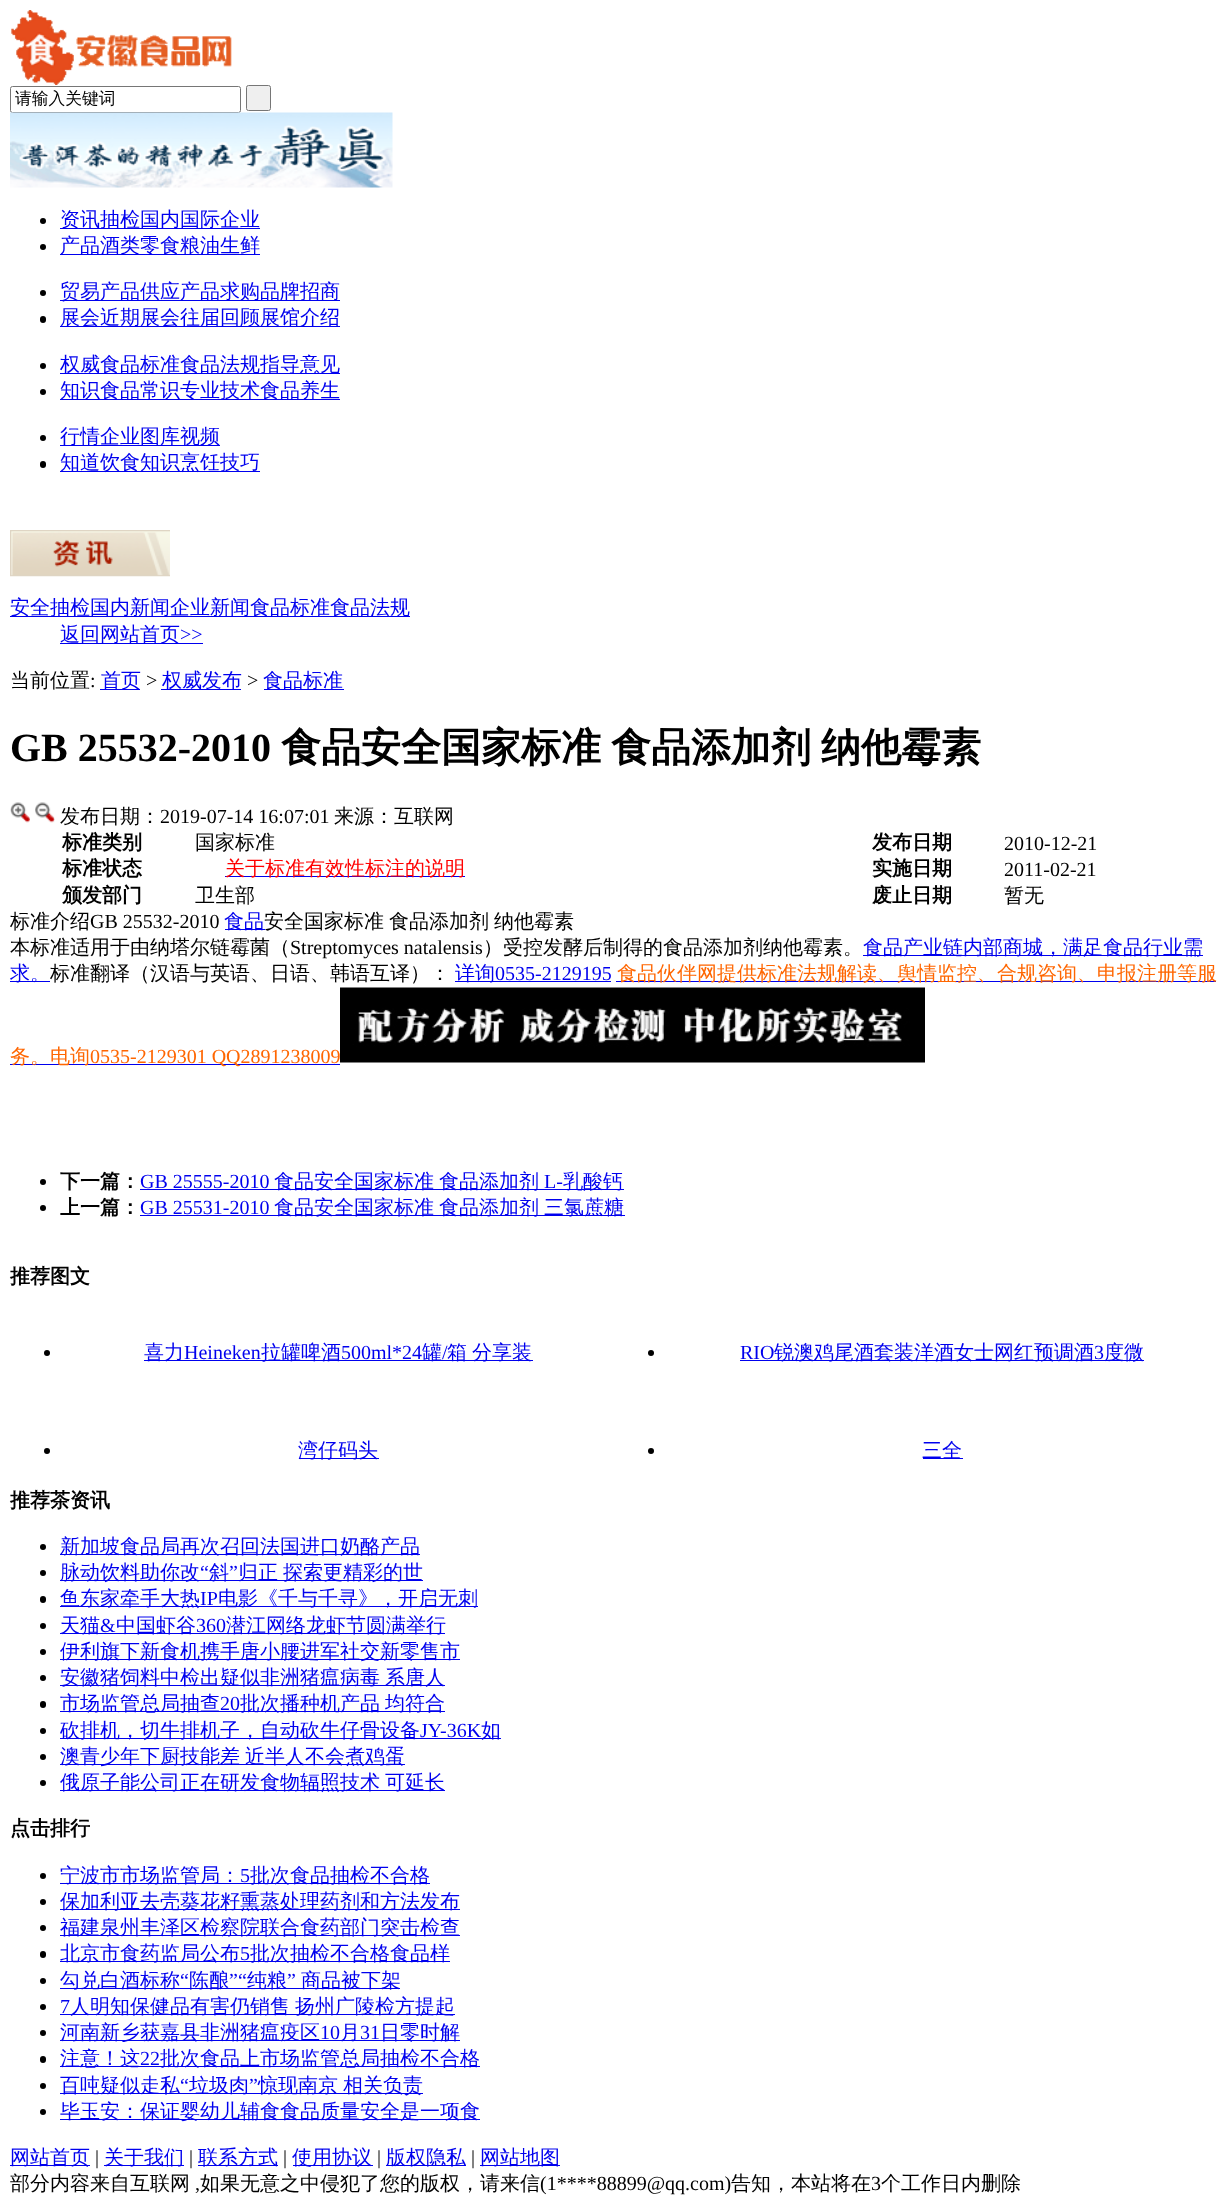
(async () => {
    const canvas = document.querySelector("canvas");
    canvas.width = 1229;
    canvas.height = 2208;
    const context = canvas.getContext("2d");
    context.miterLimit = 4;
    context.fontKerning = "normal";
    function write(s, x, y, font, color) {
        context.font = font;
        context.fillStyle = color;
        context.fillText(s, x, y);
    }
    function block(x, y, w, h, color) {
        context.fillStyle = color;
        context.fillRect(x, y, w, h);
    }
    function card(x, y, w, h, r, color) {
        context.fillStyle = color;
        context.beginPath();
        context.roundRect(x, y, w, h, r);
        context.fill();
    }
    async function photo(src, x, y, w, h) {
        const img = new Image();
        img.src = src;
        await img.decode();
        context.drawImage(img, x, y, w, h);
    }

    block(0, 0, 1229, 2208, "rgb(255, 255, 255)");
    await photo("media/1.png", 11, 10, 221, 75);
    context.beginPath();
    context.roundRect(10.5, 86.5, 230, 26, 2);
    context.strokeStyle = "rgb(118, 118, 118)";
    context.stroke();
    write("请输入关键词", 15, 104, "500 16.75px WenQuanYi Zen Hei", "rgb(0, 0, 0)");
    context.fillStyle = "rgb(239, 239, 239)";
    context.beginPath();
    context.roundRect(246.5, 85.5, 24, 25, 2);
    context.fill();
    context.stroke();
    await photo("media/2.png", 10, 112, 383, 76);
    context.fillStyle = "rgb(0, 0, 0)";
    context.beginPath();
    context.arc(43, 221, 3, 0, Math.PI * 2);
    context.fill();
    block(60, 228, 200, 1, "rgb(0, 0, 238)");
    write("资讯抽检国内国际企业", 60, 226, "500 20px WenQuanYi Zen Hei", "rgb(0, 0, 238)");
    context.fillStyle = "rgb(0, 0, 0)";
    context.beginPath();
    context.arc(43, 247, 3, 0, Math.PI * 2);
    context.fill();
    block(60, 254, 200, 1, "rgb(0, 0, 238)");
    write("产品酒类零食粮油生鲜", 60, 252, "500 20px WenQuanYi Zen Hei", "rgb(0, 0, 238)");
    context.fillStyle = "rgb(0, 0, 0)";
    context.beginPath();
    context.arc(43, 293, 3, 0, Math.PI * 2);
    context.fill();
    block(60, 300, 280, 1, "rgb(0, 0, 238)");
    write("贸易产品供应产品求购品牌招商", 60, 298, "500 20px WenQuanYi Zen Hei", "rgb(0, 0, 238)");
    card(40, 316, 6, 7, 3, "rgb(0, 0, 0)");
    block(60, 326, 280, 1, "rgb(0, 0, 238)");
    write("展会近期展会往届回顾展馆介绍", 60, 324, "500 20px WenQuanYi Zen Hei", "rgb(0, 0, 238)");
    context.fillStyle = "rgb(0, 0, 0)";
    context.beginPath();
    context.arc(43, 366, 3, 0, Math.PI * 2);
    context.fill();
    block(60, 373, 280, 1, "rgb(0, 0, 238)");
    write("权威食品标准食品法规指导意见", 60, 371, "500 20px WenQuanYi Zen Hei", "rgb(0, 0, 238)");
    context.fillStyle = "rgb(0, 0, 0)";
    context.beginPath();
    context.arc(43, 392, 3, 0, Math.PI * 2);
    context.fill();
    block(60, 399, 280, 1, "rgb(0, 0, 238)");
    write("知识食品常识专业技术食品养生", 60, 397, "500 20px WenQuanYi Zen Hei", "rgb(0, 0, 238)");
    context.fillStyle = "rgb(0, 0, 0)";
    context.beginPath();
    context.arc(43, 438, 3, 0, Math.PI * 2);
    context.fill();
    block(60, 445, 160, 1, "rgb(0, 0, 238)");
    write("行情企业图库视频", 60, 443, "500 20px WenQuanYi Zen Hei", "rgb(0, 0, 238)");
    card(40, 461, 6, 7, 3, "rgb(0, 0, 0)");
    block(60, 471, 200, 1, "rgb(0, 0, 238)");
    write("知道饮食知识烹饪技巧", 60, 469, "500 20px WenQuanYi Zen Hei", "rgb(0, 0, 238)");
    await photo("media/3.png", 10, 530, 160, 47);
    block(10, 616, 400, 1, "rgb(0, 0, 238)");
    write("安全抽检国内新闻企业新闻食品标准食品法规", 10, 614, "500 20px WenQuanYi Zen Hei", "rgb(0, 0, 238)");
    block(60, 643, 143, 1, "rgb(0, 0, 238)");
    write("返回网站首页", 60, 641, "500 20px WenQuanYi Zen Hei", "rgb(0, 0, 238)");
    write(">>", 180, 641, "20px Liberation Serif", "rgb(0, 0, 238)");
    write("当前位置", 10, 687, "500 20px WenQuanYi Zen Hei", "rgb(0, 0, 0)");
    write(":", 90, 687, "20px Liberation Serif", "rgb(0, 0, 0)");
    block(100, 689, 40, 1, "rgb(0, 0, 238)");
    write("首页", 101, 687, "500 20px WenQuanYi Zen Hei", "rgb(0, 0, 238)");
    write(">", 146, 687, "20px Liberation Serif", "rgb(0, 0, 0)");
    block(161, 689, 80, 1, "rgb(0, 0, 238)");
    write("权威发布", 162, 687, "500 20px WenQuanYi Zen Hei", "rgb(0, 0, 238)");
    write(">", 247, 687, "20px Liberation Serif", "rgb(0, 0, 0)");
    block(264, 689, 80, 1, "rgb(0, 0, 238)");
    write("食品标准", 263, 687, "500 20px WenQuanYi Zen Hei", "rgb(0, 0, 238)");
    write("GB 25532-2010", 10, 761, "bold 40px Liberation Serif", "rgb(0, 0, 0)");
    write("食品安全国家标准", 281, 761, "bold 40px WenQuanYi Zen Hei", "rgb(0, 0, 0)");
    write("食品添加剂", 611, 761, "bold 40px WenQuanYi Zen Hei", "rgb(0, 0, 0)");
    write("纳他霉素", 821, 761, "bold 40px WenQuanYi Zen Hei", "rgb(0, 0, 0)");
    await photo("media/4.png", 10, 802, 20, 21);
    await photo("media/5.png", 35, 802, 20, 21);
    write("发布日期：", 60, 823, "500 20px WenQuanYi Zen Hei", "rgb(0, 0, 0)");
    write("2019-07-14 16:07:01", 160, 823, "20px Liberation Serif", "rgb(0, 0, 0)");
    write("来源：互联网", 334, 823, "500 20px WenQuanYi Zen Hei", "rgb(0, 0, 0)");
    write("标准类别", 62, 849, "bold 20px WenQuanYi Zen Hei", "rgb(0, 0, 0)");
    write("国家标准", 195, 849, "500 20px WenQuanYi Zen Hei", "rgb(0, 0, 0)");
    write("发布日期", 872, 849, "bold 20px WenQuanYi Zen Hei", "rgb(0, 0, 0)");
    write("2010-12-21", 1004, 850, "20px Liberation Serif", "rgb(0, 0, 0)");
    write("标准状态", 62, 875, "bold 20px WenQuanYi Zen Hei", "rgb(0, 0, 0)");
    block(225, 876, 240, 1, "rgb(0, 0, 238)");
    write("关于标准有效性标注的说明", 225, 875, "500 20px WenQuanYi Zen Hei", "rgb(255, 0, 0)");
    write("实施日期", 872, 875, "bold 20px WenQuanYi Zen Hei", "rgb(0, 0, 0)");
    write("2011-02-21", 1004, 876, "20px Liberation Serif", "rgb(0, 0, 0)");
    write("颁发部门", 62, 902, "bold 20px WenQuanYi Zen Hei", "rgb(0, 0, 0)");
    write("卫生部", 195, 902, "500 20px WenQuanYi Zen Hei", "rgb(0, 0, 0)");
    write("废止日期", 872, 902, "bold 20px WenQuanYi Zen Hei", "rgb(0, 0, 0)");
    write("暂无", 1004, 902, "500 20px WenQuanYi Zen Hei", "rgb(0, 0, 0)");
    write("标准介绍", 10, 928, "500 20px WenQuanYi Zen Hei", "rgb(0, 0, 0)");
    write("GB 25532-2010", 90, 928, "20px Liberation Serif", "rgb(0, 0, 0)");
    block(225, 929, 40, 1, "rgb(0, 0, 238)");
    write("食品", 224, 928, "500 20px WenQuanYi Zen Hei", "rgb(0, 0, 238)");
    context.wordSpacing = "-1px";
    write("安全国家标准 食品添加剂 纳他霉素", 264, 928, "500 20px WenQuanYi Zen Hei", "rgb(0, 0, 0)");
    context.wordSpacing = "0px";
    write("本标准适用于由纳塔尔链霉菌（", 10, 954, "500 20px WenQuanYi Zen Hei", "rgb(0, 0, 0)");
    write("Streptomyces natalensis", 290, 954, "20px Liberation Serif", "rgb(0, 0, 0)");
    write("）受控发酵后制得的食品添加剂纳他霉素。", 483, 954, "500 20px WenQuanYi Zen Hei", "rgb(0, 0, 0)");
    block(863, 955, 340, 1, "rgb(0, 0, 238)");
    write("食品产业链内部商城，满足食品行业需", 863, 954, "500 20px WenQuanYi Zen Hei", "rgb(0, 0, 238)");
    block(10, 981, 40, 1, "rgb(0, 0, 238)");
    write("求。", 10, 980, "500 20px WenQuanYi Zen Hei", "rgb(0, 0, 238)");
    write("标准翻译（汉语与英语、日语、韩语互译）：", 50, 980, "500 20px WenQuanYi Zen Hei", "rgb(0, 0, 0)");
    block(455, 981, 156, 1, "rgb(0, 0, 238)");
    write("详询", 455, 980, "500 20px WenQuanYi Zen Hei", "rgb(0, 0, 238)");
    write("0535-2129195", 495, 980, "20px Liberation Serif", "rgb(0, 0, 238)");
    block(616, 981, 600, 1, "rgb(0, 0, 238)");
    write("食品伙伴网提供标准法规解读、舆情监控、合规咨询、申报注册等服", 617, 980, "500 20px WenQuanYi Zen Hei", "rgb(255, 102, 0)");
    block(10, 1064, 330, 1, "rgb(0, 0, 238)");
    write("务。电询", 10, 1063, "500 20px WenQuanYi Zen Hei", "rgb(255, 102, 0)");
    write("0535-2129301 QQ2891238009", 90, 1063, "20px Liberation Serif", "rgb(255, 102, 0)");
    await photo("media/6.png", 340, 987, 585, 76);
    context.fillStyle = "rgb(0, 0, 0)";
    context.beginPath();
    context.arc(43, 1182, 3, 0, Math.PI * 2);
    context.fill();
    write("下一篇：", 60, 1188, "bold 20px WenQuanYi Zen Hei", "rgb(0, 0, 0)");
    write("GB 25555-2010", 140, 1188, "20px Liberation Serif", "rgb(0, 0, 238)");
    block(140, 1189, 484, 1, "rgb(0, 0, 238)");
    write("食品安全国家标准", 274, 1188, "500 20px WenQuanYi Zen Hei", "rgb(0, 0, 238)");
    write("食品添加剂", 439, 1188, "500 20px WenQuanYi Zen Hei", "rgb(0, 0, 238)");
    write("L-", 544, 1188, "20px Liberation Serif", "rgb(0, 0, 238)");
    write("乳酸钙", 563, 1188, "500 20px WenQuanYi Zen Hei", "rgb(0, 0, 238)");
    context.fillStyle = "rgb(0, 0, 0)";
    context.beginPath();
    context.arc(43, 1208, 3, 0, Math.PI * 2);
    context.fill();
    write("上一篇：", 60, 1214, "bold 20px WenQuanYi Zen Hei", "rgb(0, 0, 0)");
    write("GB 25531-2010", 140, 1214, "20px Liberation Serif", "rgb(0, 0, 238)");
    block(140, 1215, 485, 1, "rgb(0, 0, 238)");
    write("食品安全国家标准", 274, 1214, "500 20px WenQuanYi Zen Hei", "rgb(0, 0, 238)");
    write("食品添加剂", 439, 1214, "500 20px WenQuanYi Zen Hei", "rgb(0, 0, 238)");
    write("三氯蔗糖", 544, 1214, "500 20px WenQuanYi Zen Hei", "rgb(0, 0, 238)");
    write("推荐图文", 10, 1283, "bold 20px WenQuanYi Zen Hei", "rgb(0, 0, 0)");
    context.beginPath();
    context.arc(47, 1353, 3, 0, Math.PI * 2);
    context.fill();
    block(144, 1360, 389, 1, "rgb(0, 0, 238)");
    write("喜力", 144, 1359, "500 20px WenQuanYi Zen Hei", "rgb(0, 0, 238)");
    write("Heineken", 184, 1359, "20px Liberation Serif", "rgb(0, 0, 238)");
    write("拉罐啤酒", 261, 1359, "500 20px WenQuanYi Zen Hei", "rgb(0, 0, 238)");
    write("500ml*24", 341, 1359, "20px Liberation Serif", "rgb(0, 0, 238)");
    write("罐", 422, 1359, "500 20px WenQuanYi Zen Hei", "rgb(0, 0, 238)");
    write("/", 442, 1359, "20px Liberation Serif", "rgb(0, 0, 238)");
    context.wordSpacing = "-1px";
    write("箱 分享装", 447, 1359, "500 20px WenQuanYi Zen Hei", "rgb(0, 0, 238)");
    context.fillStyle = "rgb(0, 0, 0)";
    context.beginPath();
    context.arc(651, 1353, 3, 0, Math.PI * 2);
    context.fill();
    context.wordSpacing = "0px";
    write("RIO", 740, 1359, "20px Liberation Serif", "rgb(0, 0, 238)");
    block(740, 1360, 404, 1, "rgb(0, 0, 238)");
    write("锐澳鸡尾酒套装洋酒女士网红预调酒", 774, 1359, "500 20px WenQuanYi Zen Hei", "rgb(0, 0, 238)");
    write("3", 1094, 1359, "20px Liberation Serif", "rgb(0, 0, 238)");
    write("度微", 1104, 1359, "500 20px WenQuanYi Zen Hei", "rgb(0, 0, 238)");
    context.fillStyle = "rgb(0, 0, 0)";
    context.beginPath();
    context.arc(47, 1451, 3, 0, Math.PI * 2);
    context.fill();
    block(299, 1458, 80, 1, "rgb(0, 0, 238)");
    write("湾仔码头", 298, 1457, "500 20px WenQuanYi Zen Hei", "rgb(0, 0, 238)");
    context.fillStyle = "rgb(0, 0, 0)";
    context.beginPath();
    context.arc(651, 1451, 3, 0, Math.PI * 2);
    context.fill();
    block(923, 1458, 40, 1, "rgb(0, 0, 238)");
    write("三全", 922, 1457, "500 20px WenQuanYi Zen Hei", "rgb(0, 0, 238)");
    write("推荐茶资讯", 10, 1507, "bold 20px WenQuanYi Zen Hei", "rgb(0, 0, 0)");
    context.beginPath();
    context.arc(43, 1547, 3, 0, Math.PI * 2);
    context.fill();
    block(60, 1554, 360, 1, "rgb(0, 0, 238)");
    write("新加坡食品局再次召回法国进口奶酪产品", 60, 1553, "500 20px WenQuanYi Zen Hei", "rgb(0, 0, 238)");
    block(60, 1580, 363, 1, "rgb(0, 0, 238)");
    write("脉动饮料助你改", 60, 1579, "500 20px WenQuanYi Zen Hei", "rgb(0, 0, 238)");
    write("“", 200, 1579, "20px Liberation Serif", "rgb(0, 0, 238)");
    write("斜", 209, 1579, "500 20px WenQuanYi Zen Hei", "rgb(0, 0, 238)");
    write("”", 229, 1579, "20px Liberation Serif", "rgb(0, 0, 238)");
    context.wordSpacing = "-1px";
    write("归正 探索更精彩的世", 238, 1579, "500 20px WenQuanYi Zen Hei", "rgb(0, 0, 238)");
    context.fillStyle = "rgb(0, 0, 0)";
    context.beginPath();
    context.arc(43, 1573, 3, 0, Math.PI * 2);
    context.fill();
    card(40, 1596, 6, 7, 3, "rgb(0, 0, 0)");
    block(60, 1606, 418, 1, "rgb(0, 0, 238)");
    context.wordSpacing = "0px";
    write("鱼东家牵手大热", 60, 1605, "500 20px WenQuanYi Zen Hei", "rgb(0, 0, 238)");
    write("IP", 200, 1605, "20px Liberation Serif", "rgb(0, 0, 238)");
    write("电影《千与千寻》，开启无刺", 218, 1605, "500 20px WenQuanYi Zen Hei", "rgb(0, 0, 238)");
    context.fillStyle = "rgb(0, 0, 0)";
    context.beginPath();
    context.arc(43, 1626, 3, 0, Math.PI * 2);
    context.fill();
    block(60, 1633, 385, 1, "rgb(0, 0, 238)");
    write("天猫", 60, 1632, "500 20px WenQuanYi Zen Hei", "rgb(0, 0, 238)");
    write("&", 100, 1632, "20px Liberation Serif", "rgb(0, 0, 238)");
    write("中国虾谷", 116, 1632, "500 20px WenQuanYi Zen Hei", "rgb(0, 0, 238)");
    write("360", 196, 1632, "20px Liberation Serif", "rgb(0, 0, 238)");
    write("潜江网络龙虾节圆满举行", 226, 1632, "500 20px WenQuanYi Zen Hei", "rgb(0, 0, 238)");
    context.fillStyle = "rgb(0, 0, 0)";
    context.beginPath();
    context.arc(43, 1652, 3, 0, Math.PI * 2);
    context.fill();
    block(60, 1659, 400, 1, "rgb(0, 0, 238)");
    write("伊利旗下新食机携手唐小腰进军社交新零售市", 60, 1658, "500 20px WenQuanYi Zen Hei", "rgb(0, 0, 238)");
    context.fillStyle = "rgb(0, 0, 0)";
    context.beginPath();
    context.arc(43, 1678, 3, 0, Math.PI * 2);
    context.fill();
    block(60, 1685, 385, 1, "rgb(0, 0, 238)");
    context.wordSpacing = "-1px";
    write("安徽猪饲料中检出疑似非洲猪瘟病毒 系唐人", 60, 1684, "500 20px WenQuanYi Zen Hei", "rgb(0, 0, 238)");
    card(40, 1701, 6, 7, 3, "rgb(0, 0, 0)");
    block(60, 1711, 385, 1, "rgb(0, 0, 238)");
    context.wordSpacing = "0px";
    write("市场监管总局抽查", 60, 1710, "500 20px WenQuanYi Zen Hei", "rgb(0, 0, 238)");
    write("20", 220, 1710, "20px Liberation Serif", "rgb(0, 0, 238)");
    context.wordSpacing = "-1px";
    write("批次播种机产品 均符合", 240, 1710, "500 20px WenQuanYi Zen Hei", "rgb(0, 0, 238)");
    context.fillStyle = "rgb(0, 0, 0)";
    context.beginPath();
    context.arc(43, 1731, 3, 0, Math.PI * 2);
    context.fill();
    block(60, 1738, 441, 1, "rgb(0, 0, 238)");
    context.wordSpacing = "0px";
    write("砍排机，切牛排机子，自动砍牛仔骨设备", 60, 1737, "500 20px WenQuanYi Zen Hei", "rgb(0, 0, 238)");
    write("JY-36K", 420, 1737, "20px Liberation Serif", "rgb(0, 0, 238)");
    write("如", 481, 1737, "500 20px WenQuanYi Zen Hei", "rgb(0, 0, 238)");
    context.fillStyle = "rgb(0, 0, 0)";
    context.beginPath();
    context.arc(43, 1757, 3, 0, Math.PI * 2);
    context.fill();
    block(60, 1764, 345, 1, "rgb(0, 0, 238)");
    context.wordSpacing = "-1px";
    write("澳青少年下厨技能差 近半人不会煮鸡蛋", 60, 1763, "500 20px WenQuanYi Zen Hei", "rgb(0, 0, 238)");
    context.fillStyle = "rgb(0, 0, 0)";
    context.beginPath();
    context.arc(43, 1783, 3, 0, Math.PI * 2);
    context.fill();
    block(60, 1790, 385, 1, "rgb(0, 0, 238)");
    write("俄原子能公司正在研发食物辐照技术 可延长", 60, 1789, "500 20px WenQuanYi Zen Hei", "rgb(0, 0, 238)");
    context.wordSpacing = "0px";
    write("点击排行", 10, 1835, "bold 20px WenQuanYi Zen Hei", "rgb(0, 0, 0)");
    context.beginPath();
    context.arc(43, 1876, 3, 0, Math.PI * 2);
    context.fill();
    block(60, 1883, 370, 1, "rgb(0, 0, 238)");
    write("宁波市市场监管局：", 60, 1882, "500 20px WenQuanYi Zen Hei", "rgb(0, 0, 238)");
    write("5", 240, 1882, "20px Liberation Serif", "rgb(0, 0, 238)");
    write("批次食品抽检不合格", 250, 1882, "500 20px WenQuanYi Zen Hei", "rgb(0, 0, 238)");
    context.fillStyle = "rgb(0, 0, 0)";
    context.beginPath();
    context.arc(43, 1902, 3, 0, Math.PI * 2);
    context.fill();
    block(60, 1909, 400, 1, "rgb(0, 0, 238)");
    write("保加利亚去壳葵花籽熏蒸处理药剂和方法发布", 60, 1908, "500 20px WenQuanYi Zen Hei", "rgb(0, 0, 238)");
    context.fillStyle = "rgb(0, 0, 0)";
    context.beginPath();
    context.arc(43, 1928, 3, 0, Math.PI * 2);
    context.fill();
    block(60, 1935, 400, 1, "rgb(0, 0, 238)");
    write("福建泉州丰泽区检察院联合食药部门突击检查", 60, 1934, "500 20px WenQuanYi Zen Hei", "rgb(0, 0, 238)");
    card(40, 1951, 6, 7, 3, "rgb(0, 0, 0)");
    block(60, 1961, 390, 1, "rgb(0, 0, 238)");
    write("北京市食药监局公布", 60, 1960, "500 20px WenQuanYi Zen Hei", "rgb(0, 0, 238)");
    write("5", 240, 1960, "20px Liberation Serif", "rgb(0, 0, 238)");
    write("批次抽检不合格食品样", 250, 1960, "500 20px WenQuanYi Zen Hei", "rgb(0, 0, 238)");
    block(60, 1988, 340, 1, "rgb(0, 0, 238)");
    write("勾兑白酒标称", 60, 1987, "500 20px WenQuanYi Zen Hei", "rgb(0, 0, 238)");
    write("“", 180, 1987, "20px Liberation Serif", "rgb(0, 0, 238)");
    write("陈酿", 189, 1987, "500 20px WenQuanYi Zen Hei", "rgb(0, 0, 238)");
    write("”“", 229, 1987, "20px Liberation Serif", "rgb(0, 0, 238)");
    write("纯粮", 247, 1987, "500 20px WenQuanYi Zen Hei", "rgb(0, 0, 238)");
    write("”", 287, 1987, "20px Liberation Serif", "rgb(0, 0, 238)");
    write("商品被下架", 301, 1987, "500 20px WenQuanYi Zen Hei", "rgb(0, 0, 238)");
    context.fillStyle = "rgb(0, 0, 0)";
    context.beginPath();
    context.arc(43, 1981, 3, 0, Math.PI * 2);
    context.fill();
    context.beginPath();
    context.arc(43, 2007, 3, 0, Math.PI * 2);
    context.fill();
    write("7", 60, 2013, "20px Liberation Serif", "rgb(0, 0, 238)");
    block(60, 2014, 395, 1, "rgb(0, 0, 238)");
    context.wordSpacing = "-1px";
    write("人明知保健品有害仍销售 扬州广陵检方提起", 70, 2013, "500 20px WenQuanYi Zen Hei", "rgb(0, 0, 238)");
    context.fillStyle = "rgb(0, 0, 0)";
    context.beginPath();
    context.arc(43, 2033, 3, 0, Math.PI * 2);
    context.fill();
    block(60, 2040, 400, 1, "rgb(0, 0, 238)");
    context.wordSpacing = "0px";
    write("河南新乡获嘉县非洲猪瘟疫区", 60, 2039, "500 20px WenQuanYi Zen Hei", "rgb(0, 0, 238)");
    write("10", 320, 2039, "20px Liberation Serif", "rgb(0, 0, 238)");
    write("月", 340, 2039, "500 20px WenQuanYi Zen Hei", "rgb(0, 0, 238)");
    write("31", 360, 2039, "20px Liberation Serif", "rgb(0, 0, 238)");
    write("日零时解", 380, 2039, "500 20px WenQuanYi Zen Hei", "rgb(0, 0, 238)");
    card(40, 2056, 6, 7, 3, "rgb(0, 0, 0)");
    block(60, 2066, 420, 1, "rgb(0, 0, 238)");
    write("注意！这", 60, 2065, "500 20px WenQuanYi Zen Hei", "rgb(0, 0, 238)");
    write("22", 140, 2065, "20px Liberation Serif", "rgb(0, 0, 238)");
    write("批次食品上市场监管总局抽检不合格", 160, 2065, "500 20px WenQuanYi Zen Hei", "rgb(0, 0, 238)");
    block(60, 2093, 363, 1, "rgb(0, 0, 238)");
    write("百吨疑似走私", 60, 2092, "500 20px WenQuanYi Zen Hei", "rgb(0, 0, 238)");
    write("“", 180, 2092, "20px Liberation Serif", "rgb(0, 0, 238)");
    write("垃圾肉", 189, 2092, "500 20px WenQuanYi Zen Hei", "rgb(0, 0, 238)");
    write("”", 249, 2092, "20px Liberation Serif", "rgb(0, 0, 238)");
    context.wordSpacing = "-1px";
    write("惊现南京 相关负责", 258, 2092, "500 20px WenQuanYi Zen Hei", "rgb(0, 0, 238)");
    context.fillStyle = "rgb(0, 0, 0)";
    context.beginPath();
    context.arc(43, 2086, 3, 0, Math.PI * 2);
    context.fill();
    context.beginPath();
    context.arc(43, 2112, 3, 0, Math.PI * 2);
    context.fill();
    block(60, 2119, 420, 1, "rgb(0, 0, 238)");
    context.wordSpacing = "0px";
    write("毕玉安：保证婴幼儿辅食食品质量安全是一项食", 60, 2118, "500 20px WenQuanYi Zen Hei", "rgb(0, 0, 238)");
    block(10, 2165, 80, 1, "rgb(0, 0, 238)");
    write("网站首页", 10, 2164, "500 20px WenQuanYi Zen Hei", "rgb(0, 0, 238)");
    write("|", 95, 2164, "20px Liberation Serif", "rgb(0, 0, 0)");
    block(104, 2165, 80, 1, "rgb(0, 0, 238)");
    write("关于我们", 104, 2164, "500 20px WenQuanYi Zen Hei", "rgb(0, 0, 238)");
    write("|", 189, 2164, "20px Liberation Serif", "rgb(0, 0, 0)");
    block(198, 2165, 80, 1, "rgb(0, 0, 238)");
    write("联系方式", 198, 2164, "500 20px WenQuanYi Zen Hei", "rgb(0, 0, 238)");
    write("|", 283, 2164, "20px Liberation Serif", "rgb(0, 0, 0)");
    block(293, 2165, 80, 1, "rgb(0, 0, 238)");
    write("使用协议", 292, 2164, "500 20px WenQuanYi Zen Hei", "rgb(0, 0, 238)");
    write("|", 377, 2164, "20px Liberation Serif", "rgb(0, 0, 0)");
    block(386, 2165, 80, 1, "rgb(0, 0, 238)");
    write("版权隐私", 386, 2164, "500 20px WenQuanYi Zen Hei", "rgb(0, 0, 238)");
    write("|", 471, 2164, "20px Liberation Serif", "rgb(0, 0, 0)");
    block(480, 2165, 80, 1, "rgb(0, 0, 238)");
    write("网站地图", 480, 2164, "500 20px WenQuanYi Zen Hei", "rgb(0, 0, 238)");
    write("部分内容来自互联网", 10, 2190, "500 20px WenQuanYi Zen Hei", "rgb(0, 0, 0)");
    write(",", 195, 2190, "20px Liberation Serif", "rgb(0, 0, 0)");
    write("如果无意之中侵犯了您的版权，请来信", 200, 2190, "500 20px WenQuanYi Zen Hei", "rgb(0, 0, 0)");
    write("(1****88899@qq.com)", 540, 2190, "20px Liberation Serif", "rgb(0, 0, 0)");
    write("告知，本站将在", 731, 2190, "500 20px WenQuanYi Zen Hei", "rgb(0, 0, 0)");
    write("3", 871, 2190, "20px Liberation Serif", "rgb(0, 0, 0)");
    write("个工作日内删除", 881, 2190, "500 20px WenQuanYi Zen Hei", "rgb(0, 0, 0)");
})();
